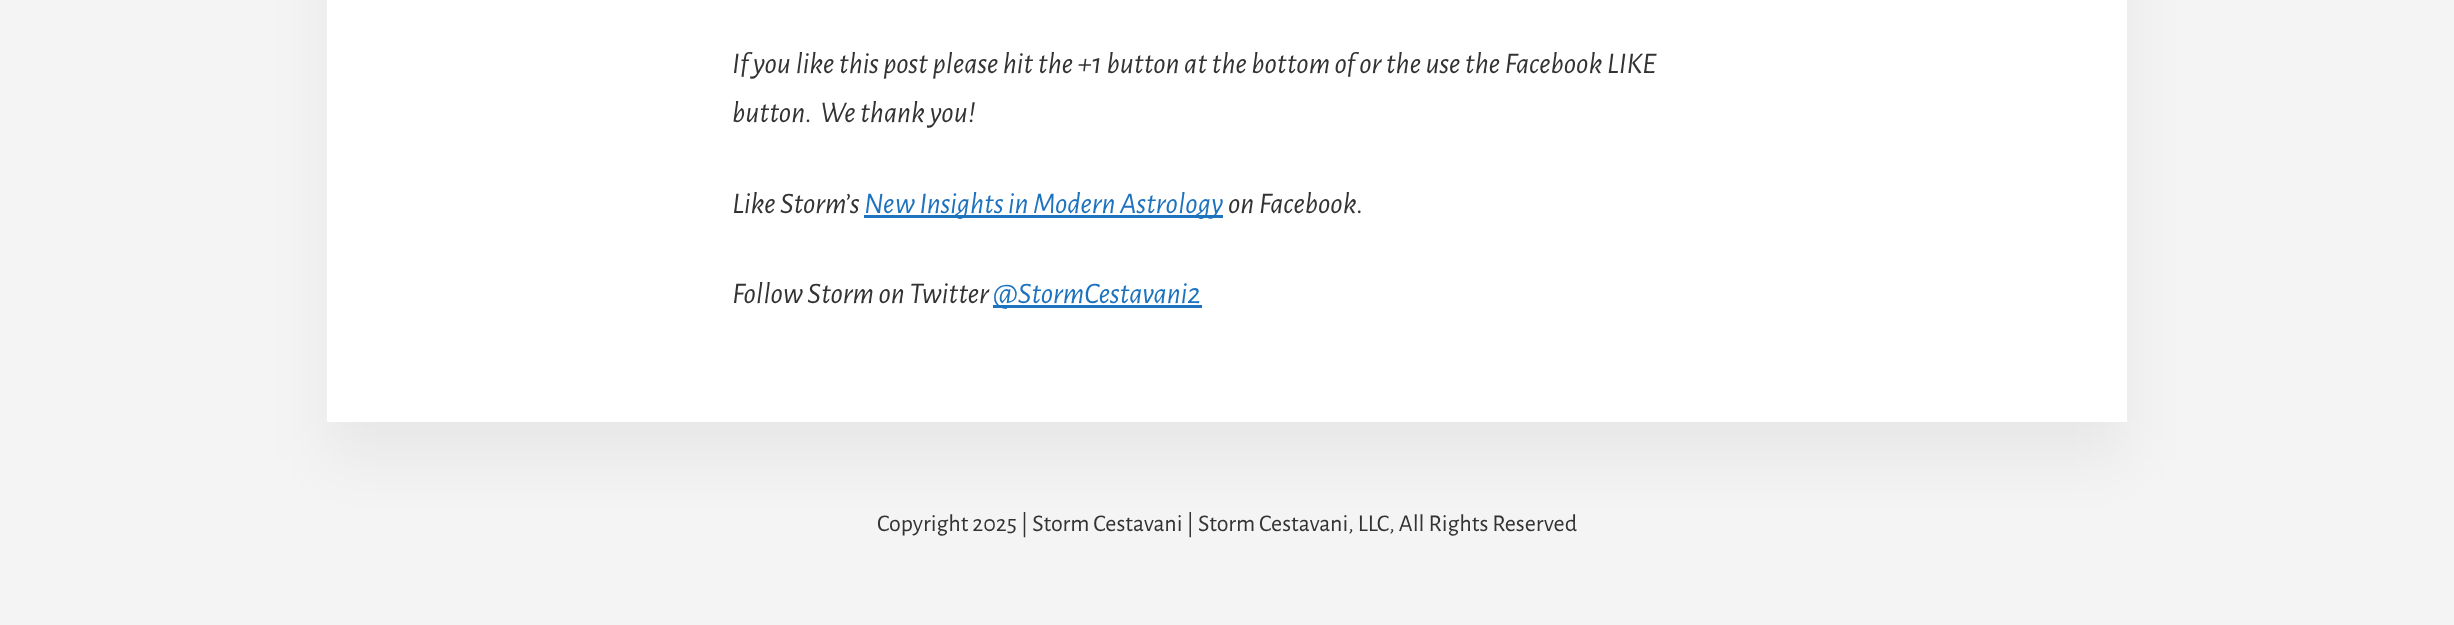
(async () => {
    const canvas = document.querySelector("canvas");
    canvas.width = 2454;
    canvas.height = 625;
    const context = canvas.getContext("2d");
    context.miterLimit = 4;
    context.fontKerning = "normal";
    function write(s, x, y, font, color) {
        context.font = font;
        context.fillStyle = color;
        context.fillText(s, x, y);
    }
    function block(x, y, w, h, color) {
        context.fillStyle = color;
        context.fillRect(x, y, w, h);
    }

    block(0, 0, 2454, 625, "rgb(244, 244, 244)");
    context.fillStyle = "rgba(0, 0, 0, 0.05)";
    context.filter = "blur(30px)";
    context.beginPath();
    context.rect(327, -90, 1800, 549);
    context.fill();
    context.filter = "none";
    block(327, 0, 1800, 422, "rgb(255, 255, 255)");
    write("If you like this post please hit the +1 button at the bottom of or the use the Facebook LIKE", 732, 73, "italic 30px Alegreya Sans", "rgb(51, 51, 51)");
    write("button.  We thank you!", 732, 122, "italic 30px Alegreya Sans", "rgb(51, 51, 51)");
    write("Like Storm’s", 732, 213, "italic 30px Alegreya Sans", "rgb(51, 51, 51)");
    block(864, 215, 359, 3, "rgb(30, 115, 190)");
    write("New Insights in Modern Astrology", 864, 213, "italic 30px Alegreya Sans", "rgb(30, 115, 190)");
    write("on Facebook.", 1228, 213, "italic 30px Alegreya Sans", "rgb(51, 51, 51)");
    write("Follow Storm on Twitter", 732, 303, "italic 30px Alegreya Sans", "rgb(51, 51, 51)");
    block(993, 305, 209, 3, "rgb(30, 115, 190)");
    write("@StormCestavani2", 993, 303, "italic 30px Alegreya Sans", "rgb(30, 115, 190)");
    write("Copyright 2025 | Storm Cestavani | Storm Cestavani, LLC, All Rights Reserved", 877, 531, "24px Alegreya Sans", "rgb(51, 51, 51)");
})();
